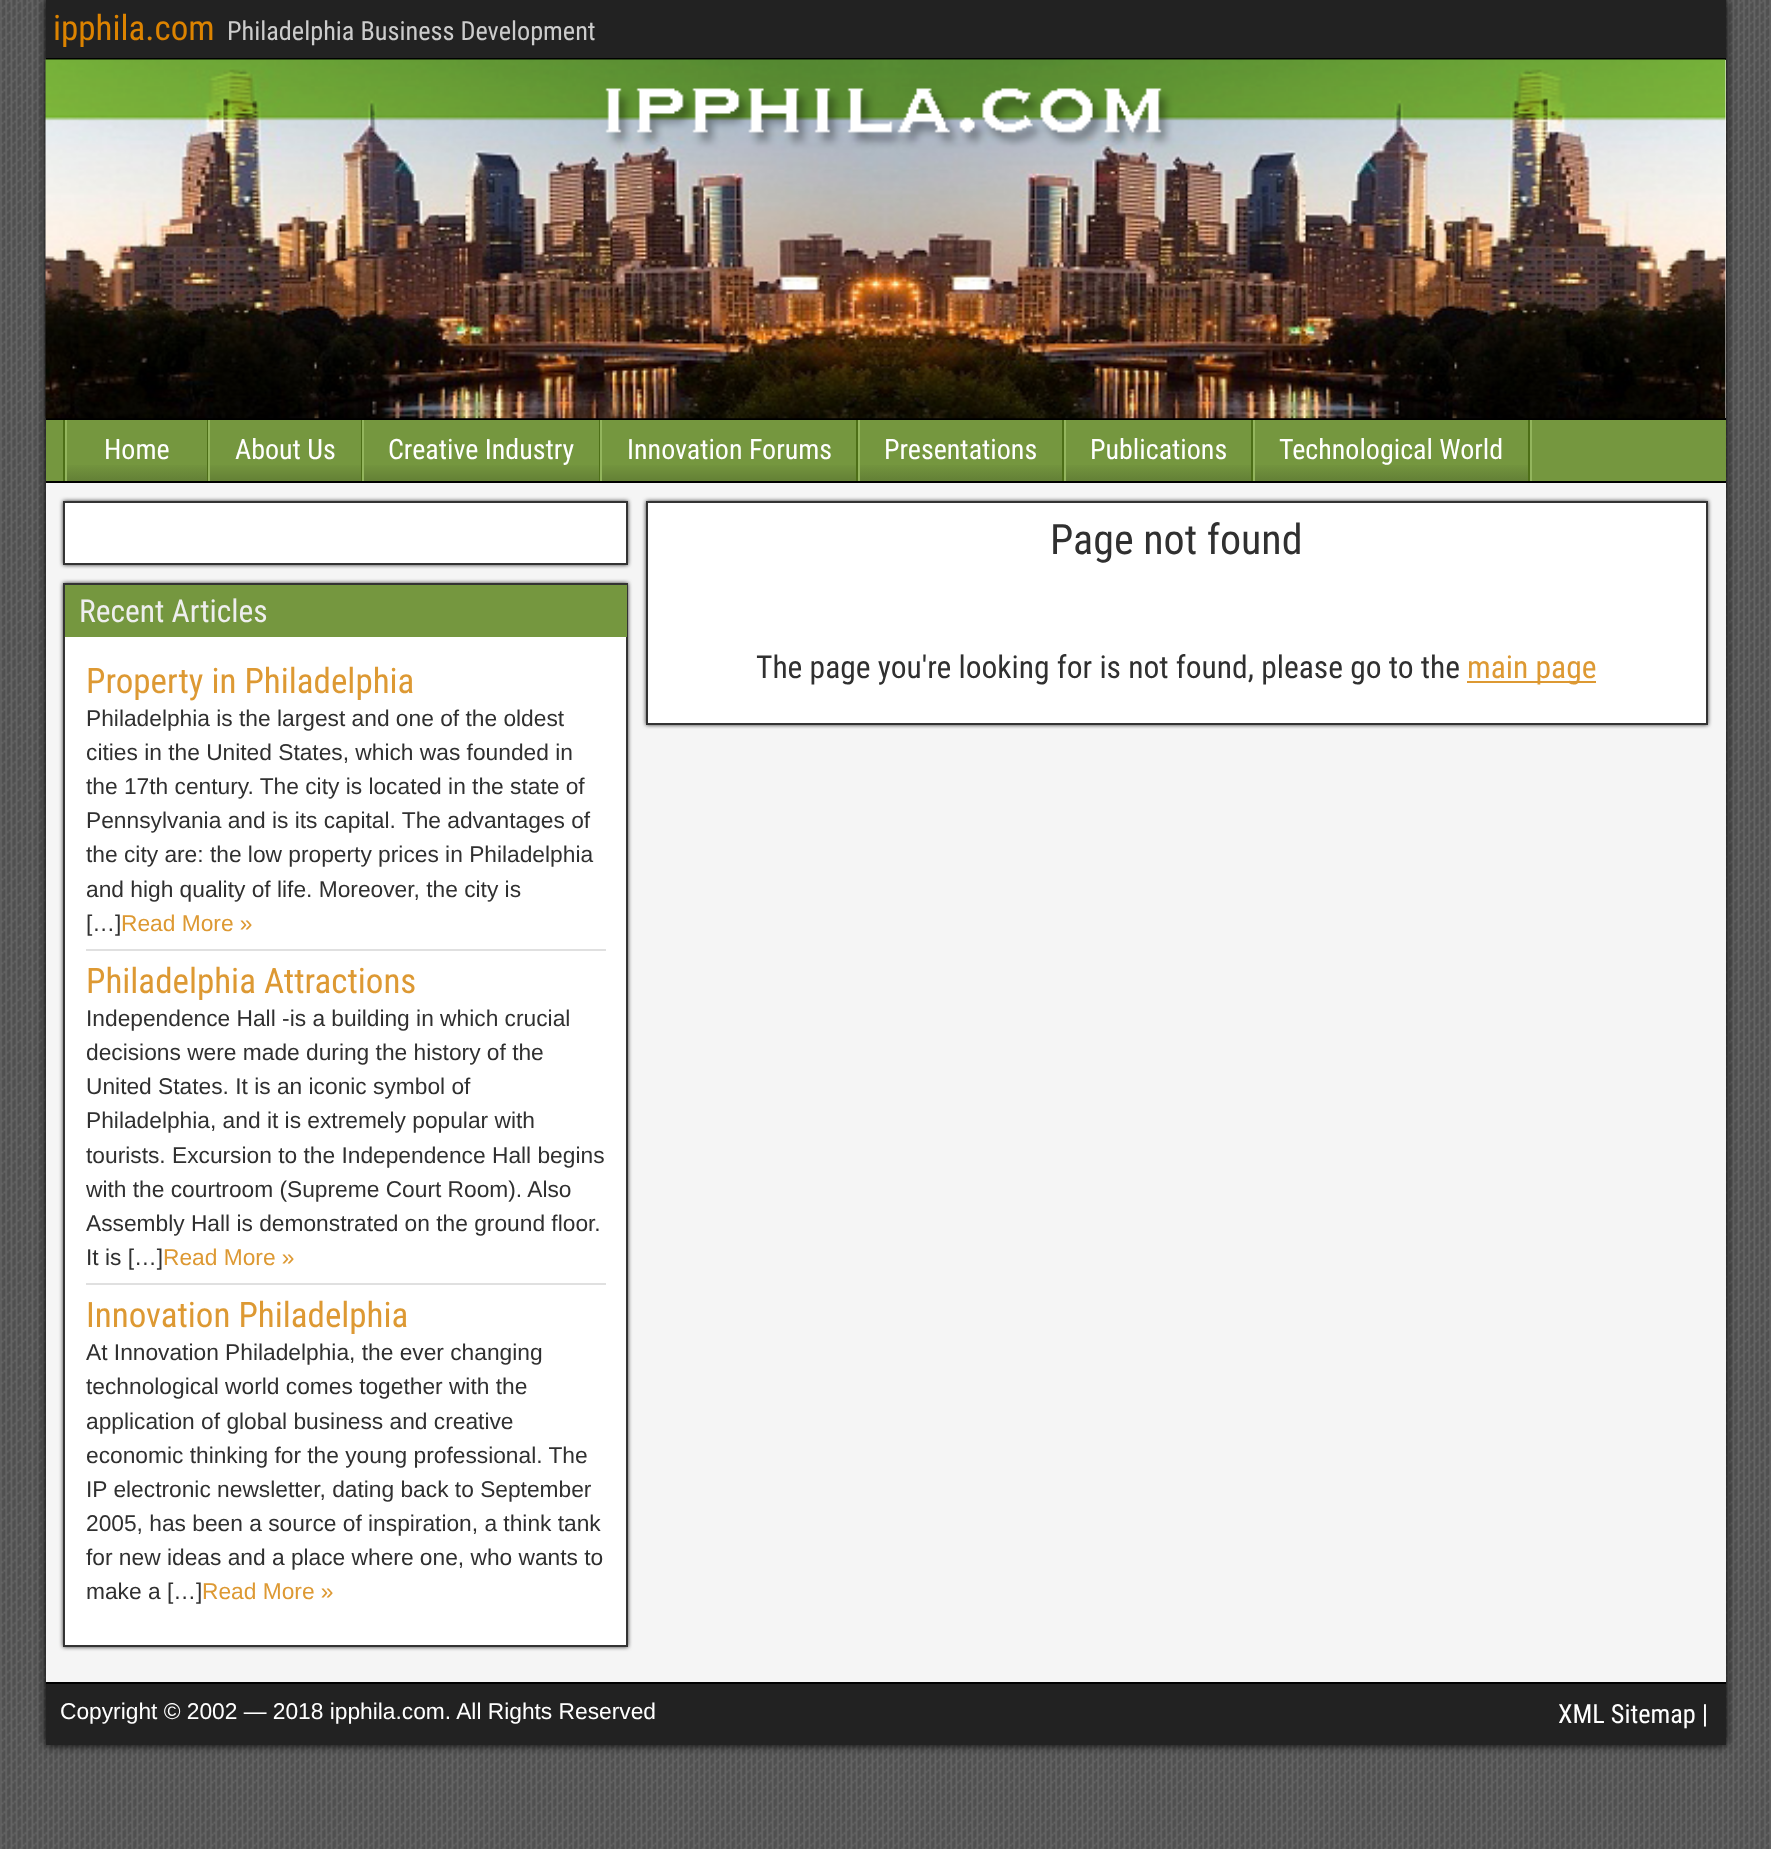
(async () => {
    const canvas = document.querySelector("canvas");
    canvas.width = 1771;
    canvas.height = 1849;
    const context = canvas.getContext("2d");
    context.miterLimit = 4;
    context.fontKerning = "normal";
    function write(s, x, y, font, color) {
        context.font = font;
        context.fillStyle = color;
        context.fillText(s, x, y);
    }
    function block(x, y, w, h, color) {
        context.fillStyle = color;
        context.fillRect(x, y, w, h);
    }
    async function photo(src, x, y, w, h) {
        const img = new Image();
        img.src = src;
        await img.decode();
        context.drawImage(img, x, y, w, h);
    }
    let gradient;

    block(0, 0, 1771, 1849, "rgb(80, 80, 80)");
    await photo("media/1.png", 0, 0, 1771, 1849);
    context.fillStyle = "rgb(0, 0, 0)";
    context.filter = "blur(5px)";
    context.beginPath();
    context.rect(46, 0, 1680, 1745);
    context.fill();
    context.filter = "none";
    block(46, 0, 1680, 58, "rgb(34, 34, 34)");
    block(46, 58, 1680, 2, "rgb(0, 0, 0)");
    write("ipphila.com", 53, 40, "35px Roboto Condensed", "rgb(220, 131, 0)");
    write("Philadelphia Business Development", 227, 40, "26.25px Roboto Condensed", "rgb(204, 204, 204)");
    block(1725, 60, 1, 358, "rgb(255, 255, 255)");
    block(46, 418, 1680, 2, "rgb(0, 0, 0)");
    await photo("media/2.png", 45, 59, 1681, 360);
    block(46, 420, 1680, 61, "rgb(117, 151, 63)");
    block(46, 481, 1680, 2, "rgb(0, 0, 0)");
    block(1530, 420, 2, 61, "rgb(147, 181, 93)");
    block(63, 420, 2, 61, "rgb(77, 111, 23)");
    gradient = context.createLinearGradient(137, 420, 137, 481);
    gradient.addColorStop(0.7, "rgb(117, 151, 63)");
    gradient.addColorStop(1, "rgb(99, 128, 54)");
    context.fillStyle = gradient;
    context.fillRect(67, 465, 140, 16);
    block(207, 420, 1, 61, "rgb(77, 111, 23)");
    block(65, 420, 2, 61, "rgb(147, 181, 93)");
    write("Home", 104, 459, "28px Roboto Condensed", "rgb(255, 255, 255)");
    gradient = context.createLinearGradient(285, 420, 285, 481);
    gradient.addColorStop(0.7, "rgba(0, 0, 0, 0)");
    gradient.addColorStop(1, "rgba(0, 0, 0, 0.15)");
    context.fillStyle = gradient;
    context.fillRect(210, 465, 151, 16);
    block(361, 420, 1, 61, "rgb(77, 111, 23)");
    block(208, 420, 2, 61, "rgb(147, 181, 93)");
    write("About Us", 235, 459, "28px Roboto Condensed", "rgb(255, 255, 255)");
    gradient = context.createLinearGradient(481, 420, 481, 481);
    gradient.addColorStop(0.7, "rgba(0, 0, 0, 0)");
    gradient.addColorStop(1, "rgba(0, 0, 0, 0.15)");
    context.fillStyle = gradient;
    context.fillRect(364, 465, 235, 16);
    block(599, 420, 1, 61, "rgb(77, 111, 23)");
    block(362, 420, 2, 61, "rgb(147, 181, 93)");
    write("Creative Industry", 388, 459, "28px Roboto Condensed", "rgb(255, 255, 255)");
    gradient = context.createLinearGradient(729, 420, 729, 481);
    gradient.addColorStop(0.7, "rgba(0, 0, 0, 0)");
    gradient.addColorStop(1, "rgba(0, 0, 0, 0.15)");
    context.fillStyle = gradient;
    context.fillRect(602, 465, 254, 16);
    block(856, 420, 2, 61, "rgb(77, 111, 23)");
    block(600, 420, 2, 61, "rgb(147, 181, 93)");
    write("Innovation Forums", 627, 459, "28px Roboto Condensed", "rgb(255, 255, 255)");
    gradient = context.createLinearGradient(961, 420, 961, 481);
    gradient.addColorStop(0.7, "rgb(117, 151, 63)");
    gradient.addColorStop(1, "rgb(99, 128, 54)");
    context.fillStyle = gradient;
    context.fillRect(860, 465, 202, 16);
    block(1062, 420, 2, 61, "rgb(77, 111, 23)");
    block(858, 420, 2, 61, "rgb(147, 181, 93)");
    write("Presentations", 884, 459, "28px Roboto Condensed", "rgb(255, 255, 255)");
    gradient = context.createLinearGradient(1159, 420, 1159, 481);
    gradient.addColorStop(0.7, "rgb(117, 151, 63)");
    gradient.addColorStop(1, "rgb(99, 128, 54)");
    context.fillStyle = gradient;
    context.fillRect(1066, 465, 185, 16);
    block(1251, 420, 2, 61, "rgb(77, 111, 23)");
    block(1064, 420, 2, 61, "rgb(147, 181, 93)");
    write("Publications", 1090, 459, "28px Roboto Condensed", "rgb(255, 255, 255)");
    gradient = context.createLinearGradient(1391, 420, 1391, 481);
    gradient.addColorStop(0.7, "rgb(117, 151, 63)");
    gradient.addColorStop(1, "rgb(99, 128, 54)");
    context.fillStyle = gradient;
    context.fillRect(1255, 465, 273, 16);
    block(1528, 420, 2, 61, "rgb(77, 111, 23)");
    block(1253, 420, 2, 61, "rgb(147, 181, 93)");
    write("Technological World", 1279, 459, "28px Roboto Condensed", "rgb(255, 255, 255)");
    block(46, 483, 1680, 1199, "rgb(245, 245, 245)");
    context.fillStyle = "rgb(51, 51, 51)";
    context.filter = "blur(2px)";
    context.beginPath();
    context.rect(63, 501, 565, 64);
    context.fill();
    context.filter = "none";
    context.fillStyle = "rgb(255, 255, 255)";
    context.beginPath();
    context.rect(64, 502, 563, 62);
    context.fill();
    context.strokeStyle = "rgb(51, 51, 51)";
    context.lineWidth = 2;
    context.stroke();
    context.fillStyle = "rgb(51, 51, 51)";
    context.filter = "blur(2px)";
    context.beginPath();
    context.rect(63, 583, 565, 1064);
    context.fill();
    context.filter = "none";
    block(65, 637, 561, 1008, "rgb(255, 255, 255)");
    context.strokeRect(64, 584, 563, 1062);
    block(65, 585, 562, 52, "rgb(117, 151, 63)");
    write("Recent Articles", 79, 622, "31.5px Roboto Condensed", "rgb(238, 238, 238)");
    block(86, 949, 520, 2, "rgb(224, 224, 224)");
    write("Property in Philadelphia", 86, 693, "35px Roboto Condensed", "rgb(221, 153, 51)");
    write("Philadelphia is the largest and one of the oldest", 86, 726, "22.75px Liberation Sans", "rgb(48, 48, 48)");
    write("cities in the United States, which was founded in", 86, 760, "22.75px Liberation Sans", "rgb(48, 48, 48)");
    write("the 17th century. The city is located in the state of", 86, 794, "22.75px Liberation Sans", "rgb(48, 48, 48)");
    write("Pennsylvania and is its capital. The advantages of", 86, 828, "22.75px Liberation Sans", "rgb(48, 48, 48)");
    write("the city are: the low property prices in Philadelphia", 86, 862, "22.75px Liberation Sans", "rgb(48, 48, 48)");
    write("and high quality of life. Moreover, the city is", 86, 897, "22.75px Liberation Sans", "rgb(48, 48, 48)");
    write("[…]", 86, 931, "22.75px Liberation Sans", "rgb(48, 48, 48)");
    write("Read More »", 121, 931, "22.75px Liberation Sans", "rgb(221, 153, 51)");
    block(86, 1283, 520, 2, "rgb(224, 224, 224)");
    write("Philadelphia Attractions", 86, 993, "35px Roboto Condensed", "rgb(221, 153, 51)");
    write("Independence Hall -is a building in which crucial", 86, 1026, "22.75px Liberation Sans", "rgb(48, 48, 48)");
    write("decisions were made during the history of the", 86, 1060, "22.75px Liberation Sans", "rgb(48, 48, 48)");
    write("United States. It is an iconic symbol of", 86, 1094, "22.75px Liberation Sans", "rgb(48, 48, 48)");
    write("Philadelphia, and it is extremely popular with", 86, 1128, "22.75px Liberation Sans", "rgb(48, 48, 48)");
    write("tourists. Excursion to the Independence Hall begins", 86, 1163, "22.75px Liberation Sans", "rgb(48, 48, 48)");
    write("with the courtroom (Supreme Court Room). Also", 86, 1197, "22.75px Liberation Sans", "rgb(48, 48, 48)");
    write("Assembly Hall is demonstrated on the ground floor.", 86, 1231, "22.75px Liberation Sans", "rgb(48, 48, 48)");
    write("It is […]", 86, 1265, "22.75px Liberation Sans", "rgb(48, 48, 48)");
    write("Read More »", 163, 1265, "22.75px Liberation Sans", "rgb(221, 153, 51)");
    write("Innovation Philadelphia", 86, 1327, "35px Roboto Condensed", "rgb(221, 153, 51)");
    write("At Innovation Philadelphia, the ever changing", 86, 1360, "22.75px Liberation Sans", "rgb(48, 48, 48)");
    write("technological world comes together with the", 86, 1394, "22.75px Liberation Sans", "rgb(48, 48, 48)");
    write("application of global business and creative", 86, 1429, "22.75px Liberation Sans", "rgb(48, 48, 48)");
    write("economic thinking for the young professional. The", 86, 1463, "22.75px Liberation Sans", "rgb(48, 48, 48)");
    write("IP electronic newsletter, dating back to September", 86, 1497, "22.75px Liberation Sans", "rgb(48, 48, 48)");
    write("2005, has been a source of inspiration, a think tank", 86, 1531, "22.75px Liberation Sans", "rgb(48, 48, 48)");
    write("for new ideas and a place where one, who wants to", 86, 1565, "22.75px Liberation Sans", "rgb(48, 48, 48)");
    write("make a […]", 86, 1599, "22.75px Liberation Sans", "rgb(48, 48, 48)");
    write("Read More »", 202, 1599, "22.75px Liberation Sans", "rgb(221, 153, 51)");
    context.fillStyle = "rgb(51, 51, 51)";
    context.filter = "blur(2px)";
    context.beginPath();
    context.rect(646, 501, 1062, 224);
    context.fill();
    context.filter = "none";
    context.fillStyle = "rgb(255, 255, 255)";
    context.beginPath();
    context.rect(647, 502, 1060, 222);
    context.fill();
    context.stroke();
    write("Page not found", 1050, 554, "42px Roboto Condensed", "rgb(48, 48, 48)");
    write("The page you're looking for is not found, please go to the", 756, 678, "31.5px Roboto Condensed", "rgb(48, 48, 48)");
    block(1467, 681, 129, 2, "rgb(221, 153, 51)");
    write("main page", 1467, 678, "31.5px Roboto Condensed", "rgb(221, 153, 51)");
    block(46, 1684, 1680, 61, "rgb(34, 34, 34)");
    block(46, 1682, 1680, 2, "rgb(0, 0, 0)");
    write("Copyright © 2002 — 2018 ipphila.com. All Rights Reserved", 60, 1719, "22.75px Liberation Sans", "rgb(255, 255, 255)");
    write("XML Sitemap |", 1558, 1723, "26.25px Roboto Condensed", "rgb(255, 255, 255)");
})();
